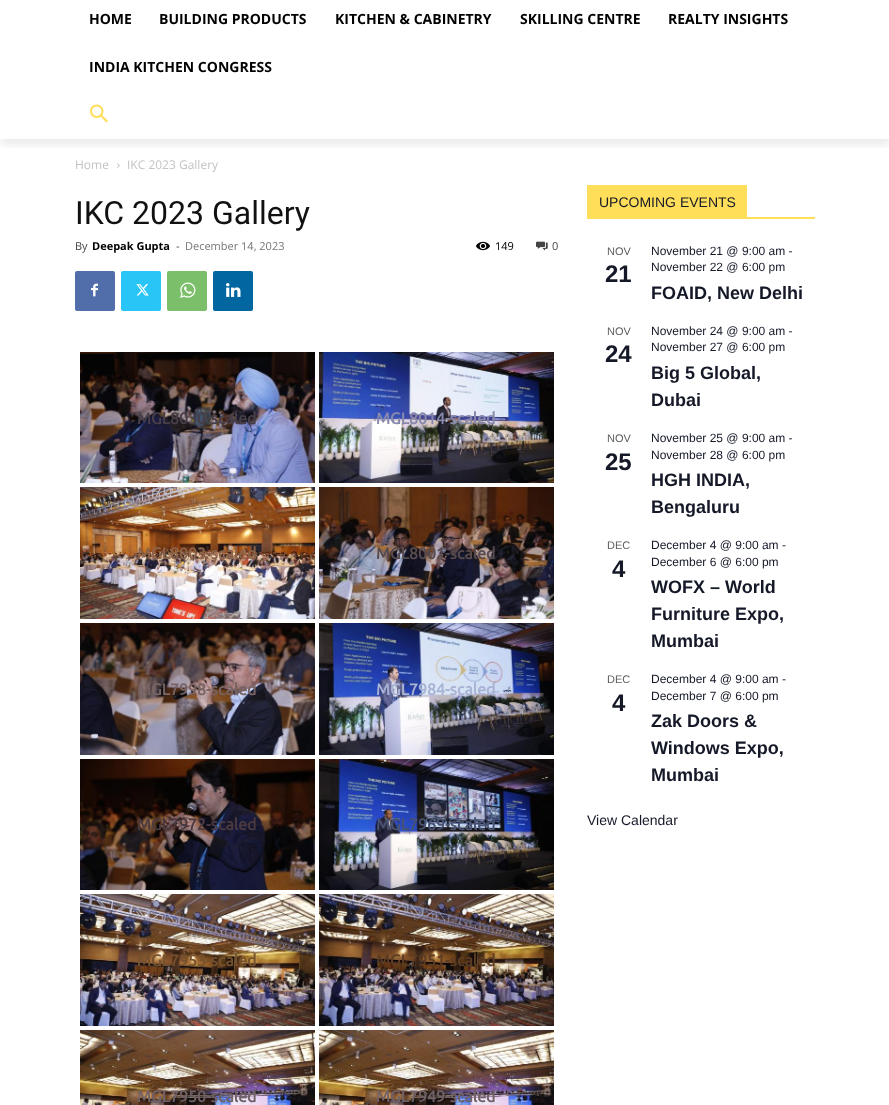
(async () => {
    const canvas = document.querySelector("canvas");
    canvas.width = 889;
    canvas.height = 1105;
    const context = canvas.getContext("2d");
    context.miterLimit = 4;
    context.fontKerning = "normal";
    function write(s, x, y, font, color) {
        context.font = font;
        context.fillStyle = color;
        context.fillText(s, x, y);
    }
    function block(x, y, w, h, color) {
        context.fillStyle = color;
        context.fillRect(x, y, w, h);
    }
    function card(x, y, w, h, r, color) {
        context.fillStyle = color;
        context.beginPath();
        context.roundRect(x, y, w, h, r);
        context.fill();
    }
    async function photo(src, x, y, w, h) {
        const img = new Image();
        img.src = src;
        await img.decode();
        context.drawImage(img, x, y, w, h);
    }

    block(0, 0, 889, 1105, "rgb(255, 255, 255)");
    context.save();
    context.beginPath();
    context.rect(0, 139, 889, 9);
    context.clip();
    context.fillStyle = "rgba(0, 0, 0, 0.08)";
    context.filter = "blur(4px)";
    context.beginPath();
    context.rect(1, -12, 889, 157);
    context.fill();
    context.filter = "none";
    context.restore();
    write("HOME", 89, 24, "bold 14px Open Sans", "rgb(0, 0, 0)");
    write("BUILDING PRODUCTS", 159, 24, "bold 14px Open Sans", "rgb(0, 0, 0)");
    write("KITCHEN & CABINETRY", 335, 24, "bold 14px Open Sans", "rgb(0, 0, 0)");
    write("SKILLING CENTRE", 520, 24, "bold 14px Open Sans", "rgb(0, 0, 0)");
    write("REALTY INSIGHTS", 668, 24, "bold 14px Open Sans", "rgb(0, 0, 0)");
    write("INDIA KITCHEN CONGRESS", 89, 72, "bold 14px Open Sans", "rgb(0, 0, 0)");
    await photo("media/1.png", 90, 104, 18, 19);
    write("Home", 75, 169, "12px Open Sans", "rgb(195, 195, 195)");
    await photo("media/2.png", 117, 163, 3, 5);
    write("IKC 2023 Gallery", 127, 169, "12px Open Sans", "rgb(195, 195, 195)");
    write("IKC 2023 Gallery", 75, 224, "32px Roboto", "rgb(17, 17, 17)");
    write("By", 75, 250, "11px Open Sans", "rgb(68, 68, 68)");
    write("Deepak Gupta", 92, 250, "bold 11px Open Sans", "rgb(0, 0, 0)");
    write("-", 176, 250, "11px Open Sans", "rgb(68, 68, 68)");
    write("December 14, 2023", 185, 250, "11px Open Sans", "rgb(118, 118, 118)");
    await photo("media/3.png", 476, 241, 14, 10);
    write("149", 495, 250, "11px Open Sans", "rgb(0, 0, 0)");
    await photo("media/4.png", 536, 241, 12, 10);
    write("0", 552, 250, "11px Open Sans", "rgb(68, 68, 68)");
    card(75, 271, 40, 40, 2, "rgb(81, 110, 171)");
    await photo("media/5.png", 91, 283, 7, 14);
    card(121, 271, 40, 40, 2, "rgb(41, 197, 246)");
    await photo("media/6.png", 136, 284, 13, 12);
    card(167, 271, 40, 40, 2, "rgb(123, 191, 106)");
    await photo("media/7.png", 180, 282, 16, 16);
    card(213, 271, 40, 40, 2, "rgb(2, 102, 160)");
    await photo("media/8.png", 226, 283, 15, 14);
    await photo("media/9.png", 80, 352, 235, 131);
    write("MGL8030-scaled", 137, 424, "bold 16px Ubuntu", "rgb(70, 62, 72)");
    await photo("media/10.png", 319, 352, 235, 131);
    write("MGL8014-scaled", 376, 424, "bold 16px Ubuntu", "rgb(136, 136, 171)");
    await photo("media/11.png", 80, 487, 235, 132);
    write("MGL8003-scaled", 137, 559, "bold 16px Ubuntu", "rgb(141, 99, 73)");
    await photo("media/12.png", 319, 487, 235, 132);
    write("MGL8001-scaled", 376, 559, "bold 16px Ubuntu", "rgb(87, 75, 78)");
    await photo("media/13.png", 80, 623, 235, 132);
    write("MGL7998-scaled", 137, 695, "bold 16px Ubuntu", "rgb(120, 99, 99)");
    await photo("media/14.png", 319, 623, 235, 132);
    write("MGL7984-scaled", 376, 695, "bold 16px Ubuntu", "rgb(167, 178, 213)");
    await photo("media/15.png", 80, 759, 235, 131);
    write("MGL7972-scaled", 137, 830, "bold 16px Ubuntu", "rgb(74, 58, 63)");
    await photo("media/16.png", 319, 759, 235, 131);
    write("MGL7969-scaled", 376, 830, "bold 16px Ubuntu", "rgb(72, 82, 114)");
    await photo("media/17.png", 80, 894, 235, 132);
    write("MGL7953-scaled", 137, 966, "bold 16px Ubuntu", "rgb(117, 81, 46)");
    await photo("media/18.png", 319, 894, 235, 132);
    write("MGL7951-scaled", 376, 966, "bold 16px Ubuntu", "rgb(92, 61, 36)");
    await photo("media/19.png", 80, 1030, 235, 75);
    write("MGL7950-scaled", 137, 1102, "bold 16px Ubuntu", "rgb(112, 97, 102)");
    await photo("media/20.png", 319, 1030, 235, 75);
    write("MGL7949-scaled", 376, 1102, "bold 16px Ubuntu", "rgb(112, 97, 102)");
    block(587, 217, 228, 2, "rgb(255, 222, 89)");
    block(587, 185, 160, 32, "rgb(255, 222, 89)");
    write("UPCOMING EVENTS", 599, 207, "14px Liberation Sans", "rgb(20, 24, 39)");
    write("NOV", 607, 255, "11px Liberation Sans", "rgb(93, 93, 93)");
    write("21", 605, 282, "bold 24px Liberation Sans", "rgb(20, 24, 39)");
    write("November 21 @ 9:00 am -", 651, 255, "12px Liberation Sans", "rgb(20, 24, 39)");
    write("November 22 @ 6:00 pm", 651, 271, "12px Liberation Sans", "rgb(20, 24, 39)");
    write("FOAID, New Delhi", 651, 299, "bold 18px Liberation Sans", "rgb(20, 24, 39)");
    write("NOV", 607, 335, "11px Liberation Sans", "rgb(93, 93, 93)");
    write("24", 605, 362, "bold 24px Liberation Sans", "rgb(20, 24, 39)");
    write("November 24 @ 9:00 am -", 651, 335, "12px Liberation Sans", "rgb(20, 24, 39)");
    write("November 27 @ 6:00 pm", 651, 351, "12px Liberation Sans", "rgb(20, 24, 39)");
    write("Big 5 Global,", 651, 379, "bold 18px Liberation Sans", "rgb(20, 24, 39)");
    write("Dubai", 651, 406, "bold 18px Liberation Sans", "rgb(20, 24, 39)");
    write("NOV", 607, 442, "11px Liberation Sans", "rgb(93, 93, 93)");
    write("25", 605, 470, "bold 24px Liberation Sans", "rgb(20, 24, 39)");
    write("November 25 @ 9:00 am -", 651, 442, "12px Liberation Sans", "rgb(20, 24, 39)");
    write("November 28 @ 6:00 pm", 651, 459, "12px Liberation Sans", "rgb(20, 24, 39)");
    write("HGH INDIA,", 651, 486, "bold 18px Liberation Sans", "rgb(20, 24, 39)");
    write("Bengaluru", 651, 513, "bold 18px Liberation Sans", "rgb(20, 24, 39)");
    write("DEC", 607, 549, "11px Liberation Sans", "rgb(93, 93, 93)");
    write("4", 612, 577, "bold 24px Liberation Sans", "rgb(20, 24, 39)");
    write("December 4 @ 9:00 am -", 651, 549, "12px Liberation Sans", "rgb(20, 24, 39)");
    write("December 6 @ 6:00 pm", 651, 566, "12px Liberation Sans", "rgb(20, 24, 39)");
    write("WOFX – World", 651, 593, "bold 18px Liberation Sans", "rgb(20, 24, 39)");
    write("Furniture Expo,", 651, 620, "bold 18px Liberation Sans", "rgb(20, 24, 39)");
    write("Mumbai", 651, 647, "bold 18px Liberation Sans", "rgb(20, 24, 39)");
    write("DEC", 607, 683, "11px Liberation Sans", "rgb(93, 93, 93)");
    write("4", 612, 711, "bold 24px Liberation Sans", "rgb(20, 24, 39)");
    write("December 4 @ 9:00 am -", 651, 683, "12px Liberation Sans", "rgb(20, 24, 39)");
    write("December 7 @ 6:00 pm", 651, 700, "12px Liberation Sans", "rgb(20, 24, 39)");
    write("Zak Doors &", 651, 727, "bold 18px Liberation Sans", "rgb(20, 24, 39)");
    write("Windows Expo,", 651, 754, "bold 18px Liberation Sans", "rgb(20, 24, 39)");
    write("Mumbai", 651, 781, "bold 18px Liberation Sans", "rgb(20, 24, 39)");
    write("View Calendar", 587, 825, "14px Liberation Sans", "rgb(20, 24, 39)");
})();
